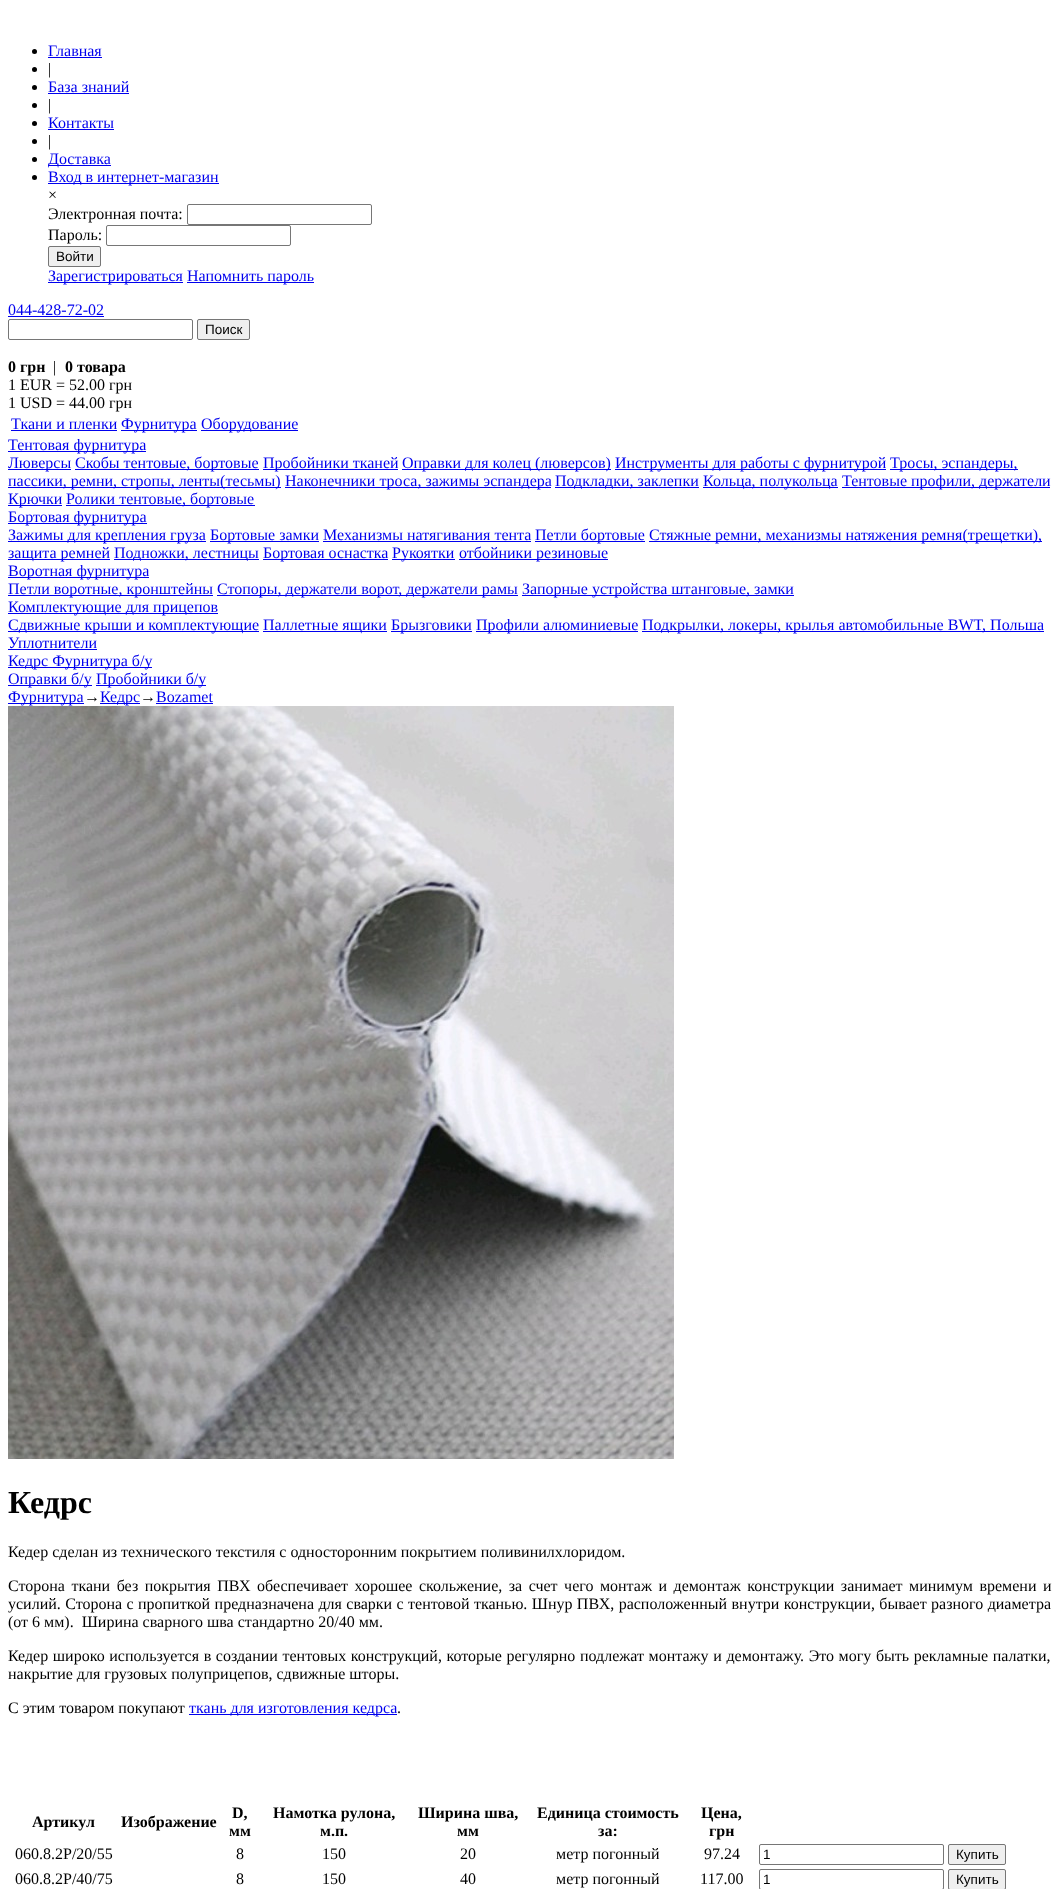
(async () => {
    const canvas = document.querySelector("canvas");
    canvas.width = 1059;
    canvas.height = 1889;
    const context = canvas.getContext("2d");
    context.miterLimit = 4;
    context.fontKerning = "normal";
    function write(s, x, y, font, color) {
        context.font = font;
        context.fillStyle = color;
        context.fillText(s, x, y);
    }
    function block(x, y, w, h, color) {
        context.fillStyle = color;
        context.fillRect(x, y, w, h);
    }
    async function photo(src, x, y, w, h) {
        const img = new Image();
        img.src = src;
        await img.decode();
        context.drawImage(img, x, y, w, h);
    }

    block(0, 0, 1059, 1889, "rgb(255, 255, 255)");
    context.fillStyle = "rgb(0, 0, 0)";
    context.beginPath();
    context.arc(34.5, 51.5, 2.5, 0, Math.PI * 2);
    context.fill();
    write("Главная", 48, 56, "16px Liberation Serif", "rgb(0, 0, 238)");
    block(48, 57, 54, 1, "rgb(0, 0, 238)");
    context.fillStyle = "rgb(0, 0, 0)";
    context.beginPath();
    context.arc(34.5, 69.5, 2.5, 0, Math.PI * 2);
    context.fill();
    write("|", 48, 74, "16px Liberation Serif", "rgb(0, 0, 0)");
    context.beginPath();
    context.arc(34.5, 87.5, 2.5, 0, Math.PI * 2);
    context.fill();
    write("База знаний", 48, 92, "16px Liberation Serif", "rgb(0, 0, 238)");
    block(48, 93, 81, 1, "rgb(0, 0, 238)");
    context.fillStyle = "rgb(0, 0, 0)";
    context.beginPath();
    context.arc(34.5, 105.5, 2.5, 0, Math.PI * 2);
    context.fill();
    write("|", 48, 110, "16px Liberation Serif", "rgb(0, 0, 0)");
    context.beginPath();
    context.arc(34.5, 123.5, 2.5, 0, Math.PI * 2);
    context.fill();
    write("Контакты", 48, 128, "16px Liberation Serif", "rgb(0, 0, 238)");
    block(48, 129, 66, 1, "rgb(0, 0, 238)");
    context.fillStyle = "rgb(0, 0, 0)";
    context.beginPath();
    context.arc(34.5, 141.5, 2.5, 0, Math.PI * 2);
    context.fill();
    write("|", 48, 146, "16px Liberation Serif", "rgb(0, 0, 0)");
    context.beginPath();
    context.arc(34.5, 159.5, 2.5, 0, Math.PI * 2);
    context.fill();
    block(48, 165, 63, 1, "rgb(0, 0, 238)");
    write("Доставка", 48, 164, "16px Liberation Serif", "rgb(0, 0, 238)");
    context.fillStyle = "rgb(0, 0, 0)";
    context.beginPath();
    context.arc(34.5, 177.5, 2.5, 0, Math.PI * 2);
    context.fill();
    block(48, 183, 171, 1, "rgb(0, 0, 238)");
    write("Вход в интернет-магазин", 48, 182, "16px Liberation Serif", "rgb(0, 0, 238)");
    write("×", 48, 200, "16px Liberation Serif", "rgb(0, 0, 0)");
    write("Электронная почта:", 48, 219, "16px Liberation Serif", "rgb(0, 0, 0)");
    context.beginPath();
    context.roundRect(187.5, 204.5, 184, 20, 1.5);
    context.strokeStyle = "rgb(118, 118, 118)";
    context.stroke();
    write("Пароль:", 48, 240, "16px Liberation Serif", "rgb(0, 0, 0)");
    context.beginPath();
    context.roundRect(106.5, 225.5, 184, 20, 1.5);
    context.stroke();
    context.fillStyle = "rgb(239, 239, 239)";
    context.beginPath();
    context.roundRect(48.5, 246.5, 52, 20, 1.5);
    context.fill();
    context.stroke();
    write("Войти", 56, 261, "13.5px Liberation Sans", "rgb(0, 0, 0)");
    block(48, 282, 135, 1, "rgb(0, 0, 238)");
    write("Зарегистрироваться", 48, 281, "16px Liberation Serif", "rgb(0, 0, 238)");
    block(187, 282, 127, 1, "rgb(0, 0, 238)");
    write("Напомнить пароль", 187, 281, "16px Liberation Serif", "rgb(0, 0, 238)");
    write("044-428-72-02", 8, 315, "16px Liberation Serif", "rgb(0, 0, 238)");
    block(8, 316, 96, 1, "rgb(0, 0, 238)");
    context.beginPath();
    context.roundRect(8.5, 319.5, 184, 20, 1.5);
    context.stroke();
    context.fillStyle = "rgb(239, 239, 239)";
    context.beginPath();
    context.roundRect(197.5, 319.5, 52, 20, 1.5);
    context.fill();
    context.stroke();
    write("Поиск", 205, 334, "13.5px Liberation Sans", "rgb(0, 0, 0)");
    write("0 грн", 8, 372, "bold 16px Liberation Serif", "rgb(0, 0, 0)");
    write("|", 53, 372, "16px Liberation Serif", "rgb(0, 0, 0)");
    write("0 товара", 65, 372, "bold 16px Liberation Serif", "rgb(0, 0, 0)");
    write("1 EUR = 52.00 грн", 8, 390, "16px Liberation Serif", "rgb(0, 0, 0)");
    write("1 USD = 44.00 грн", 8, 408, "16px Liberation Serif", "rgb(0, 0, 0)");
    write("Ткани и пленки", 11, 429, "16px Liberation Serif", "rgb(0, 0, 238)");
    block(11, 430, 106, 1, "rgb(0, 0, 238)");
    block(121, 430, 76, 1, "rgb(0, 0, 238)");
    write("Фурнитура", 121, 429, "16px Liberation Serif", "rgb(0, 0, 238)");
    block(201, 430, 97, 1, "rgb(0, 0, 238)");
    write("Оборудование", 201, 429, "16px Liberation Serif", "rgb(0, 0, 238)");
    block(8, 451, 138, 1, "rgb(0, 0, 238)");
    write("Тентовая фурнитура", 8, 450, "16px Liberation Serif", "rgb(0, 0, 238)");
    block(8, 469, 63, 1, "rgb(0, 0, 238)");
    write("Люверсы", 8, 468, "16px Liberation Serif", "rgb(0, 0, 238)");
    block(75, 469, 184, 1, "rgb(0, 0, 238)");
    write("Скобы тентовые, бортовые", 75, 468, "16px Liberation Serif", "rgb(0, 0, 238)");
    block(263, 469, 135, 1, "rgb(0, 0, 238)");
    write("Пробойники тканей", 263, 468, "16px Liberation Serif", "rgb(0, 0, 238)");
    block(402, 469, 209, 1, "rgb(0, 0, 238)");
    write("Оправки для колец (люверсов)", 402, 468, "16px Liberation Serif", "rgb(0, 0, 238)");
    block(615, 469, 271, 1, "rgb(0, 0, 238)");
    write("Инструменты для работы с фурнитурой", 615, 468, "16px Liberation Serif", "rgb(0, 0, 238)");
    block(890, 469, 128, 1, "rgb(0, 0, 238)");
    write("Тросы, эспандеры,", 890, 468, "16px Liberation Serif", "rgb(0, 0, 238)");
    block(8, 487, 273, 1, "rgb(0, 0, 238)");
    write("пассики, ремни, стропы, ленты(тесьмы)", 8, 486, "16px Liberation Serif", "rgb(0, 0, 238)");
    block(285, 487, 266, 1, "rgb(0, 0, 238)");
    write("Наконечники троса, зажимы эспандера", 285, 486, "16px Liberation Serif", "rgb(0, 0, 238)");
    block(555, 487, 144, 1, "rgb(0, 0, 238)");
    write("Подкладки, заклепки", 555, 486, "16px Liberation Serif", "rgb(0, 0, 238)");
    block(703, 487, 135, 1, "rgb(0, 0, 238)");
    write("Кольца, полукольца", 703, 486, "16px Liberation Serif", "rgb(0, 0, 238)");
    block(842, 487, 208, 1, "rgb(0, 0, 238)");
    write("Тентовые профили, держатели", 842, 486, "16px Liberation Serif", "rgb(0, 0, 238)");
    block(8, 505, 54, 1, "rgb(0, 0, 238)");
    write("Крючки", 8, 504, "16px Liberation Serif", "rgb(0, 0, 238)");
    block(66, 505, 189, 1, "rgb(0, 0, 238)");
    write("Ролики тентовые, бортовые", 66, 504, "16px Liberation Serif", "rgb(0, 0, 238)");
    block(8, 523, 139, 1, "rgb(0, 0, 238)");
    write("Бортовая фурнитура", 8, 522, "16px Liberation Serif", "rgb(0, 0, 238)");
    block(8, 541, 198, 1, "rgb(0, 0, 238)");
    write("Зажимы для крепления груза", 8, 540, "16px Liberation Serif", "rgb(0, 0, 238)");
    block(210, 541, 109, 1, "rgb(0, 0, 238)");
    write("Бортовые замки Механизмы натягивания тента", 210, 540, "16px Liberation Serif", "rgb(0, 0, 238)");
    block(535, 541, 110, 1, "rgb(0, 0, 238)");
    write("Петли бортовые", 535, 540, "16px Liberation Serif", "rgb(0, 0, 238)");
    block(649, 541, 393, 1, "rgb(0, 0, 238)");
    write("Стяжные ремни, механизмы натяжения ремня(трещетки),", 649, 540, "16px Liberation Serif", "rgb(0, 0, 238)");
    block(323, 541, 208, 1, "rgb(0, 0, 238)");
    block(8, 559, 102, 1, "rgb(0, 0, 238)");
    write("защита ремней", 8, 558, "16px Liberation Serif", "rgb(0, 0, 238)");
    block(114, 559, 145, 1, "rgb(0, 0, 238)");
    write("Подножки, лестницы", 114, 558, "16px Liberation Serif", "rgb(0, 0, 238)");
    block(263, 559, 125, 1, "rgb(0, 0, 238)");
    write("Бортовая оснастка", 263, 558, "16px Liberation Serif", "rgb(0, 0, 238)");
    block(392, 559, 63, 1, "rgb(0, 0, 238)");
    write("Рукоятки", 392, 558, "16px Liberation Serif", "rgb(0, 0, 238)");
    block(459, 559, 149, 1, "rgb(0, 0, 238)");
    write("отбойники резиновые", 459, 558, "16px Liberation Serif", "rgb(0, 0, 238)");
    block(8, 577, 141, 1, "rgb(0, 0, 238)");
    write("Воротная фурнитура", 8, 576, "16px Liberation Serif", "rgb(0, 0, 238)");
    block(8, 595, 205, 1, "rgb(0, 0, 238)");
    write("Петли воротные, кронштейны", 8, 594, "16px Liberation Serif", "rgb(0, 0, 238)");
    block(217, 595, 301, 1, "rgb(0, 0, 238)");
    write("Стопоры, держатели ворот, держатели рамы", 217, 594, "16px Liberation Serif", "rgb(0, 0, 238)");
    block(522, 595, 272, 1, "rgb(0, 0, 238)");
    write("Запорные устройства штанговые, замки", 522, 594, "16px Liberation Serif", "rgb(0, 0, 238)");
    block(8, 613, 210, 1, "rgb(0, 0, 238)");
    write("Комплектующие для прицепов", 8, 612, "16px Liberation Serif", "rgb(0, 0, 238)");
    block(8, 631, 251, 1, "rgb(0, 0, 238)");
    write("Сдвижные крыши и комплектующие", 8, 630, "16px Liberation Serif", "rgb(0, 0, 238)");
    block(263, 631, 124, 1, "rgb(0, 0, 238)");
    write("Паллетные ящики", 263, 630, "16px Liberation Serif", "rgb(0, 0, 238)");
    block(391, 631, 81, 1, "rgb(0, 0, 238)");
    write("Брызговики", 391, 630, "16px Liberation Serif", "rgb(0, 0, 238)");
    block(476, 631, 162, 1, "rgb(0, 0, 238)");
    write("Профили алюминиевые", 476, 630, "16px Liberation Serif", "rgb(0, 0, 238)");
    block(642, 631, 402, 1, "rgb(0, 0, 238)");
    write("Подкрылки, локеры, крылья автомобильные BWT, Польша", 642, 630, "16px Liberation Serif", "rgb(0, 0, 238)");
    write("Уплотнители", 8, 648, "16px Liberation Serif", "rgb(0, 0, 238)");
    block(8, 649, 89, 1, "rgb(0, 0, 238)");
    block(8, 667, 144, 1, "rgb(0, 0, 238)");
    write("Кедрс Фурнитура б/у", 8, 666, "16px Liberation Serif", "rgb(0, 0, 238)");
    block(8, 685, 84, 1, "rgb(0, 0, 238)");
    write("Оправки б/у", 8, 684, "16px Liberation Serif", "rgb(0, 0, 238)");
    block(96, 685, 110, 1, "rgb(0, 0, 238)");
    write("Пробойники б/у", 96, 684, "16px Liberation Serif", "rgb(0, 0, 238)");
    block(8, 703, 76, 1, "rgb(0, 0, 238)");
    write("Фурнитура", 8, 702, "16px Liberation Serif", "rgb(0, 0, 238)");
    write("→", 84, 702, "16px Liberation Serif", "rgb(0, 0, 0)");
    block(100, 703, 40, 1, "rgb(0, 0, 238)");
    write("Кедрс", 100, 702, "16px Liberation Serif", "rgb(0, 0, 238)");
    write("→", 140, 702, "16px Liberation Serif", "rgb(0, 0, 0)");
    write("Bozamet", 156, 702, "16px Liberation Serif", "rgb(0, 0, 238)");
    block(156, 703, 57, 1, "rgb(0, 0, 238)");
    await photo("media/1.png", 8, 706, 666, 753);
    write("Кедрс", 8, 1513, "bold 32px Liberation Serif", "rgb(0, 0, 0)");
    write("Кедер сделан из технического текстиля с односторонним покрытием поливинилхлоридом.", 8, 1557, "16px Liberation Serif", "rgb(0, 0, 0)");
    context.wordSpacing = "2.5px";
    write("Сторона ткани без покрытия ПВХ обеспечивает хорошее скольжение, за счет чего монтаж и демонтаж конструкции занимает минимум времени и", 8, 1591, "16px Liberation Serif", "rgb(0, 0, 0)");
    context.wordSpacing = "0.4px";
    write("усилий. Сторона с пропиткой предназначена для сварки с тентовой тканью. Шнур ПВХ, расположенный внутри конструкции, бывает разного диаметра", 8, 1609, "16px Liberation Serif", "rgb(0, 0, 0)");
    context.wordSpacing = "0px";
    write("(от 6 мм).  Ширина сварного шва стандартно 20/40 мм.", 8, 1627, "16px Liberation Serif", "rgb(0, 0, 0)");
    context.wordSpacing = "0.6px";
    write("Кедер широко используется в создании тентовых конструкций, которые регулярно подлежат монтажу и демонтажу. Это могу быть рекламные палатки,", 8, 1661, "16px Liberation Serif", "rgb(0, 0, 0)");
    context.wordSpacing = "0px";
    write("накрытие для грузовых полуприцепов, сдвижные шторы.", 8, 1679, "16px Liberation Serif", "rgb(0, 0, 0)");
    write("С этим товаром покупают", 8, 1713, "16px Liberation Serif", "rgb(0, 0, 0)");
    block(189, 1714, 208, 1, "rgb(0, 0, 238)");
    write("ткань для изготовления кедрса", 189, 1713, "16px Liberation Serif", "rgb(0, 0, 238)");
    write(".", 397, 1713, "16px Liberation Serif", "rgb(0, 0, 0)");
    write("Артикул", 32, 1827, "bold 16px Liberation Serif", "rgb(0, 0, 0)");
    write("Изображение", 121, 1827, "bold 16px Liberation Serif", "rgb(0, 0, 0)");
    write("D,", 232, 1818, "bold 16px Liberation Serif", "rgb(0, 0, 0)");
    write("мм", 229, 1836, "bold 16px Liberation Serif", "rgb(0, 0, 0)");
    write("Намотка рулона,", 273, 1818, "bold 16px Liberation Serif", "rgb(0, 0, 0)");
    write("м.п.", 320, 1836, "bold 16px Liberation Serif", "rgb(0, 0, 0)");
    write("Ширина шва,", 418, 1818, "bold 16px Liberation Serif", "rgb(0, 0, 0)");
    write("мм", 457, 1836, "bold 16px Liberation Serif", "rgb(0, 0, 0)");
    write("Единица стоимость", 537, 1818, "bold 16px Liberation Serif", "rgb(0, 0, 0)");
    write("за:", 598, 1836, "bold 16px Liberation Serif", "rgb(0, 0, 0)");
    write("Цена,", 701, 1818, "bold 16px Liberation Serif", "rgb(0, 0, 0)");
    write("грн", 709, 1836, "bold 16px Liberation Serif", "rgb(0, 0, 0)");
    write("060.8.2P/20/55", 15, 1859, "16px Liberation Serif", "rgb(0, 0, 0)");
    write("8", 236, 1859, "16px Liberation Serif", "rgb(0, 0, 0)");
    write("150", 322, 1859, "16px Liberation Serif", "rgb(0, 0, 0)");
    write("20", 460, 1859, "16px Liberation Serif", "rgb(0, 0, 0)");
    write("метр погонный", 556, 1859, "16px Liberation Serif", "rgb(0, 0, 0)");
    write("97.24", 704, 1859, "16px Liberation Serif", "rgb(0, 0, 0)");
    context.beginPath();
    context.roundRect(759.5, 1844.5, 184, 20, 1.5);
    context.stroke();
    write("1", 763, 1859, "13.5px Liberation Sans", "rgb(0, 0, 0)");
    context.fillStyle = "rgb(239, 239, 239)";
    context.beginPath();
    context.roundRect(948.5, 1844.5, 57, 20, 1.5);
    context.fill();
    context.stroke();
    write("Купить", 956, 1859, "13.5px Liberation Sans", "rgb(0, 0, 0)");
    write("060.8.2P/40/75", 15, 1884, "16px Liberation Serif", "rgb(0, 0, 0)");
    write("8", 236, 1884, "16px Liberation Serif", "rgb(0, 0, 0)");
    write("150", 322, 1884, "16px Liberation Serif", "rgb(0, 0, 0)");
    write("40", 460, 1884, "16px Liberation Serif", "rgb(0, 0, 0)");
    write("метр погонный", 556, 1884, "16px Liberation Serif", "rgb(0, 0, 0)");
    write("117.00", 700, 1884, "16px Liberation Serif", "rgb(0, 0, 0)");
    context.beginPath();
    context.roundRect(759.5, 1869.5, 184, 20, 1.5);
    context.stroke();
    write("1", 763, 1884, "13.5px Liberation Sans", "rgb(0, 0, 0)");
    context.fillStyle = "rgb(239, 239, 239)";
    context.beginPath();
    context.roundRect(948.5, 1869.5, 57, 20, 1.5);
    context.fill();
    context.stroke();
    write("Купить", 956, 1884, "13.5px Liberation Sans", "rgb(0, 0, 0)");
})();
